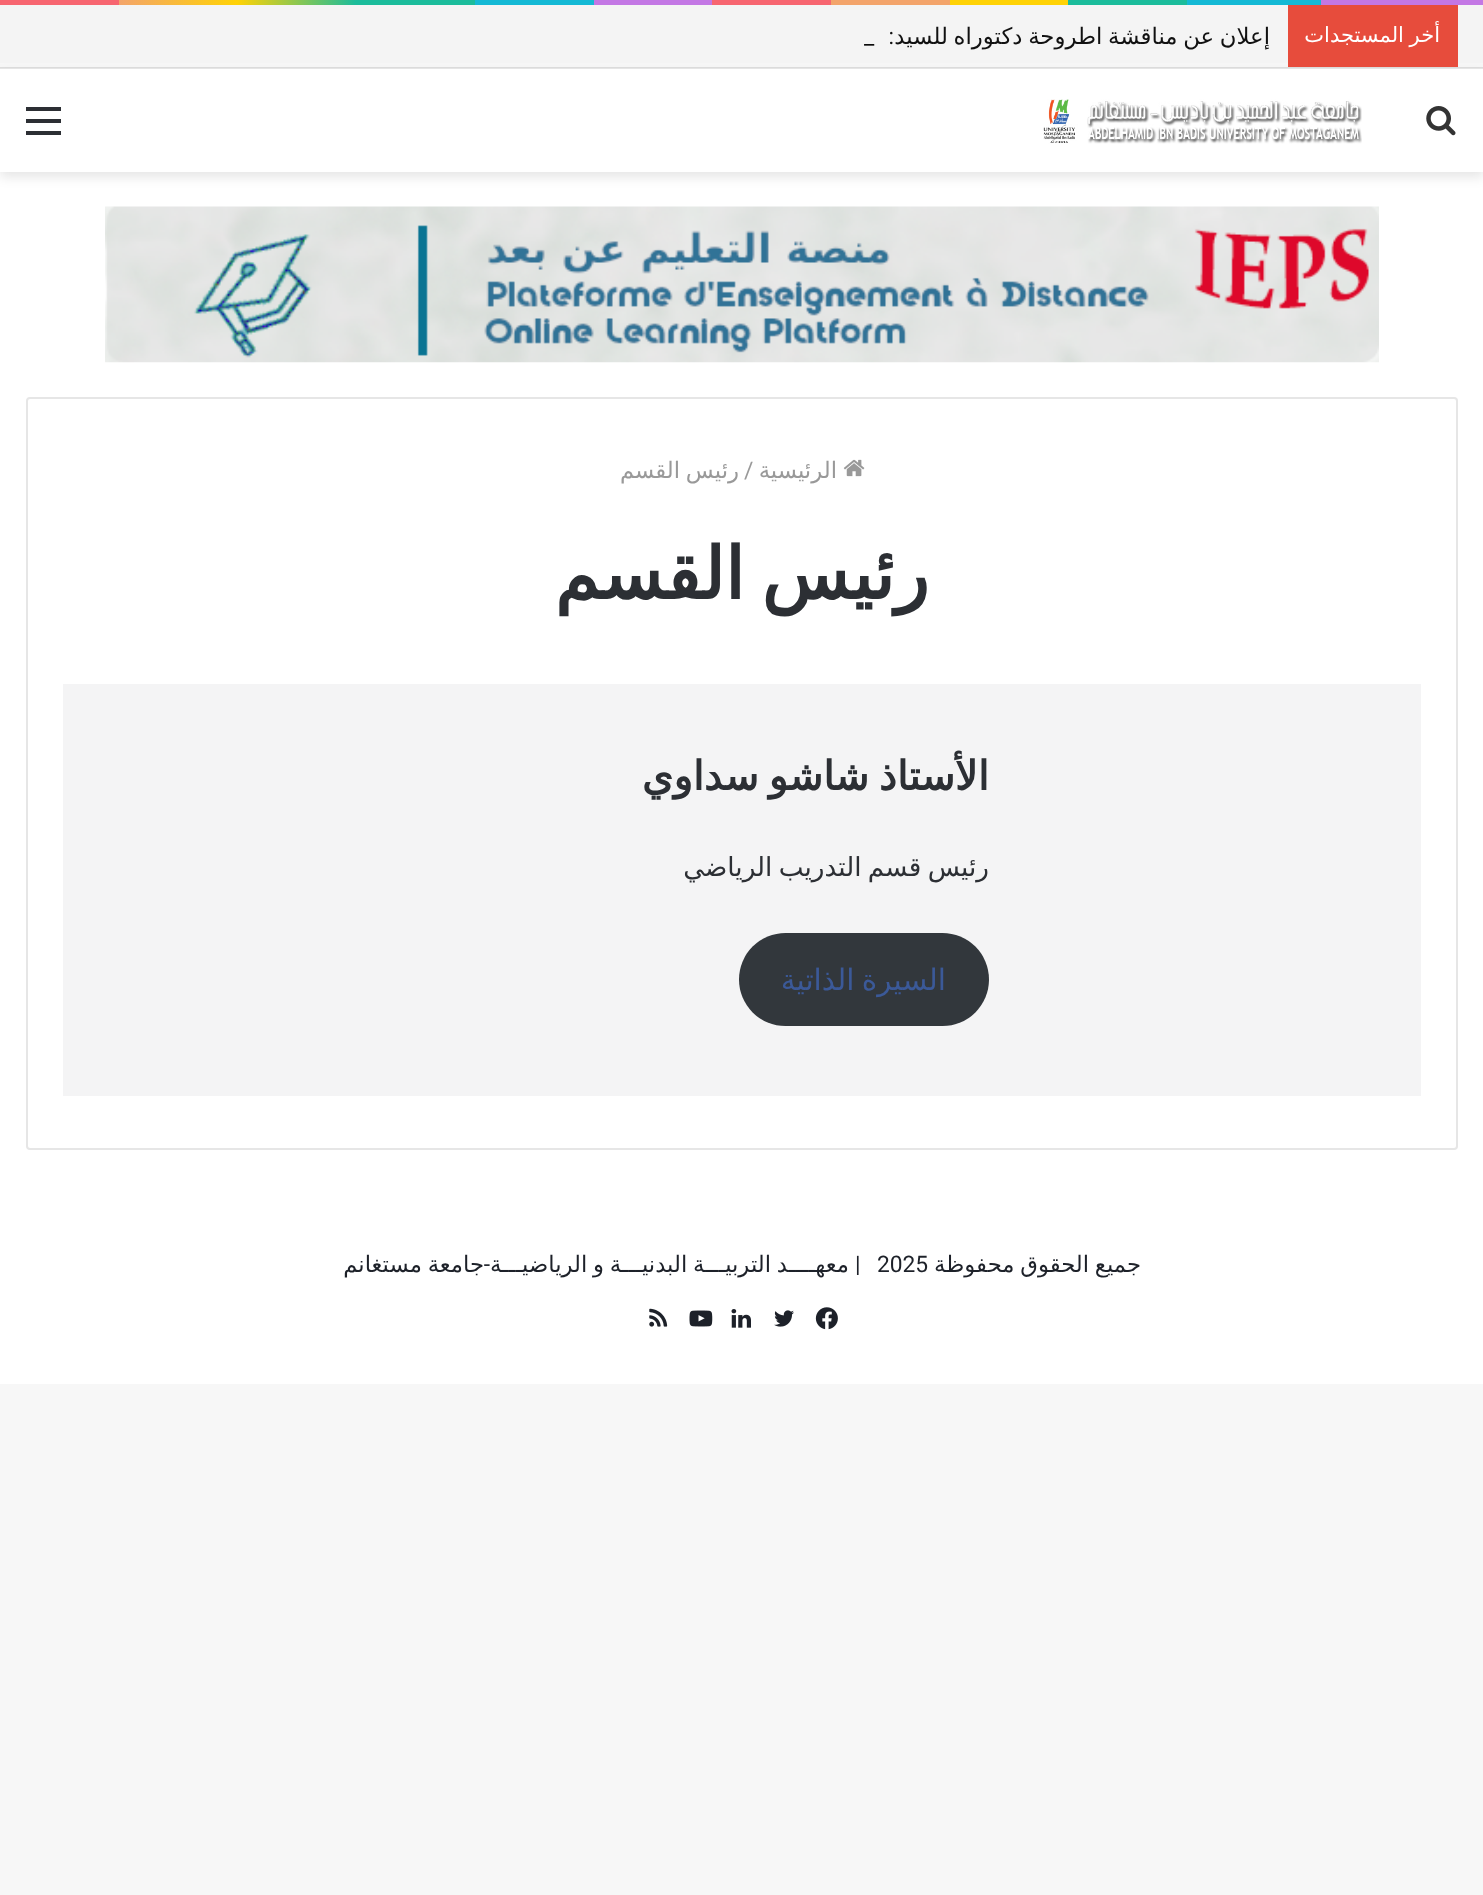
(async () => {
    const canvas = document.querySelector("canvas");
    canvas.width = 1483;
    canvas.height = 1895;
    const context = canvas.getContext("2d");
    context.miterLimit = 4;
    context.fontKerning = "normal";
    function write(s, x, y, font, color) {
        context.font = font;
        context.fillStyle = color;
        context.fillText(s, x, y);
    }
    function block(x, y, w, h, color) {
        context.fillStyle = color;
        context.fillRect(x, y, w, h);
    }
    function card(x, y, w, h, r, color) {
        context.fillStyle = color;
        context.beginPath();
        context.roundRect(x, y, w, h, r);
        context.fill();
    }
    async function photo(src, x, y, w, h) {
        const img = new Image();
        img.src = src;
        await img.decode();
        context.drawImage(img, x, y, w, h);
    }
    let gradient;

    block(0, 0, 1483, 1895, "rgb(247, 247, 247)");
    block(0, 172, 1483, 1212, "rgb(255, 255, 255)");
    gradient = context.createLinearGradient(0, 2.6, 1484, 2.6);
    gradient.addColorStop(0, "rgb(247, 101, 112)");
    gradient.addColorStop(0.08, "rgb(247, 101, 112)");
    gradient.addColorStop(0.08, "rgb(243, 164, 107)");
    gradient.addColorStop(0.16, "rgb(255, 210, 5)");
    gradient.addColorStop(0.24, "rgb(27, 188, 155)");
    gradient.addColorStop(0.32, "rgb(27, 188, 155)");
    gradient.addColorStop(0.32, "rgb(20, 185, 213)");
    gradient.addColorStop(0.4, "rgb(20, 185, 213)");
    gradient.addColorStop(0.4, "rgb(195, 119, 228)");
    gradient.addColorStop(0.48, "rgb(195, 119, 228)");
    gradient.addColorStop(0.48, "rgb(247, 101, 112)");
    gradient.addColorStop(0.56, "rgb(247, 101, 112)");
    gradient.addColorStop(0.56, "rgb(243, 164, 107)");
    gradient.addColorStop(0.64, "rgb(243, 164, 107)");
    gradient.addColorStop(0.64, "rgb(255, 210, 5)");
    gradient.addColorStop(0.72, "rgb(255, 210, 5)");
    gradient.addColorStop(0.72, "rgb(27, 188, 155)");
    gradient.addColorStop(0.8, "rgb(27, 188, 155)");
    gradient.addColorStop(0.8, "rgb(20, 185, 213)");
    gradient.addColorStop(0.89, "rgb(20, 185, 213)");
    gradient.addColorStop(0.89, "rgb(195, 119, 228)");
    gradient.addColorStop(1, "rgb(195, 119, 228)");
    context.fillStyle = gradient;
    context.fillRect(0, 0, 1483, 5);
    context.fillStyle = "rgba(0, 0, 0, 0.1)";
    context.filter = "blur(6px)";
    context.beginPath();
    context.rect(0, 74, 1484, 103);
    context.fill();
    context.filter = "none";
    block(0, 5, 1483, 58, "rgb(244, 244, 244)");
    block(0, 68, 1483, 104, "rgb(255, 255, 255)");
    block(0, 67, 1483, 2, "rgba(0, 0, 0, 0.1)");
    block(1288, 5, 170, 62, "rgb(231, 76, 60)");
    context.wordSpacing = "-1px";
    context.direction = "rtl";
    write("أخر المستجدات", 1440, 42, "21px DejaVu Sans", "rgb(255, 255, 255)");
    context.save();
    context.beginPath();
    context.rect(740, 5, 531, 62);
    context.clip();
    context.wordSpacing = "-1.5px";
    write("إعلان عن مناقشة اطروحة دكتوراه للسيد", 1270, 44, "22.75px DejaVu Sans", "rgb(17, 17, 17)");
    context.restore();
    context.wordSpacing = "0px";
    write(":", 894, 44, "22.75px Roboto", "rgb(17, 17, 17)");
    context.direction = "ltr";
    write("_", 864, 44, "22.75px Roboto", "rgb(10, 10, 10)");
    await photo("media/1.png", 1426, 106, 30, 30);
    await photo("media/2.png", 1043, 99, 319, 45);
    block(26, 119, 35, 4, "rgb(44, 47, 52)");
    block(26, 107, 35, 4, "rgb(44, 47, 52)");
    block(26, 131, 35, 4, "rgb(44, 47, 52)");
    await photo("media/3.png", 105, 206, 1274, 157);
    context.beginPath();
    context.roundRect(27, 398, 1430, 751, 3);
    context.strokeStyle = "rgb(230, 230, 230)";
    context.lineWidth = 2;
    context.stroke();
    await photo("media/4.png", 843, 459, 22, 18);
    context.direction = "rtl";
    write("الرئيسية", 837, 478, "22.75px DejaVu Sans", "rgb(153, 153, 153)");
    context.direction = "ltr";
    write("/", 744, 478, "22.75px Roboto", "rgb(153, 153, 153)");
    context.wordSpacing = "-1.5px";
    context.direction = "rtl";
    write("رئيس القسم", 739, 478, "22.75px DejaVu Sans", "rgb(153, 153, 153)");
    context.wordSpacing = "-6px";
    write("رئيس القسم", 929, 599, "bold 71.75px DejaVu Sans", "rgb(44, 47, 52)");
    block(63, 684, 1358, 412, "rgb(244, 244, 245)");
    context.wordSpacing = "-3px";
    write("الأستاذ شاشو سداوي", 989, 790, "bold 40.25px DejaVu Sans", "rgb(44, 47, 52)");
    context.wordSpacing = "-2px";
    write("رئيس قسم التدريب الرياضي", 989, 876, "26.25px DejaVu Sans", "rgb(44, 47, 52)");
    card(739, 933, 250, 93, 46.5, "rgb(50, 55, 60)");
    write("السيرة الذاتية", 946, 990, "29.5px DejaVu Sans", "rgb(59, 89, 152)");
    context.wordSpacing = "-1.5px";
    write("جميع الحقوق محفوظة", 1141, 1272, "22.75px DejaVu Sans", "rgb(29, 33, 41)");
    context.wordSpacing = "0px";
    context.direction = "ltr";
    write("2025", 877, 1272, "22.75px Roboto", "rgb(29, 33, 41)");
    write("|", 855, 1272, "22.75px Roboto", "rgb(29, 33, 41)");
    context.wordSpacing = "-1.5px";
    context.direction = "rtl";
    write("معهــــد التربيـــة البدنيـــة و الرياضيـــة", 849, 1272, "22.75px DejaVu Sans", "rgb(29, 33, 41)");
    context.wordSpacing = "0px";
    write("-", 490, 1272, "22.75px Roboto", "rgb(29, 33, 41)");
    context.wordSpacing = "-1.5px";
    write("جامعة مستغانم", 484, 1272, "22.75px DejaVu Sans", "rgb(29, 33, 41)");
    await photo("media/5.png", 815, 1307, 23, 23);
    await photo("media/6.png", 774, 1310, 20, 17);
    await photo("media/7.png", 731, 1309, 20, 19);
    await photo("media/8.png", 689, 1310, 24, 17);
    await photo("media/9.png", 649, 1308, 19, 19);
})();
